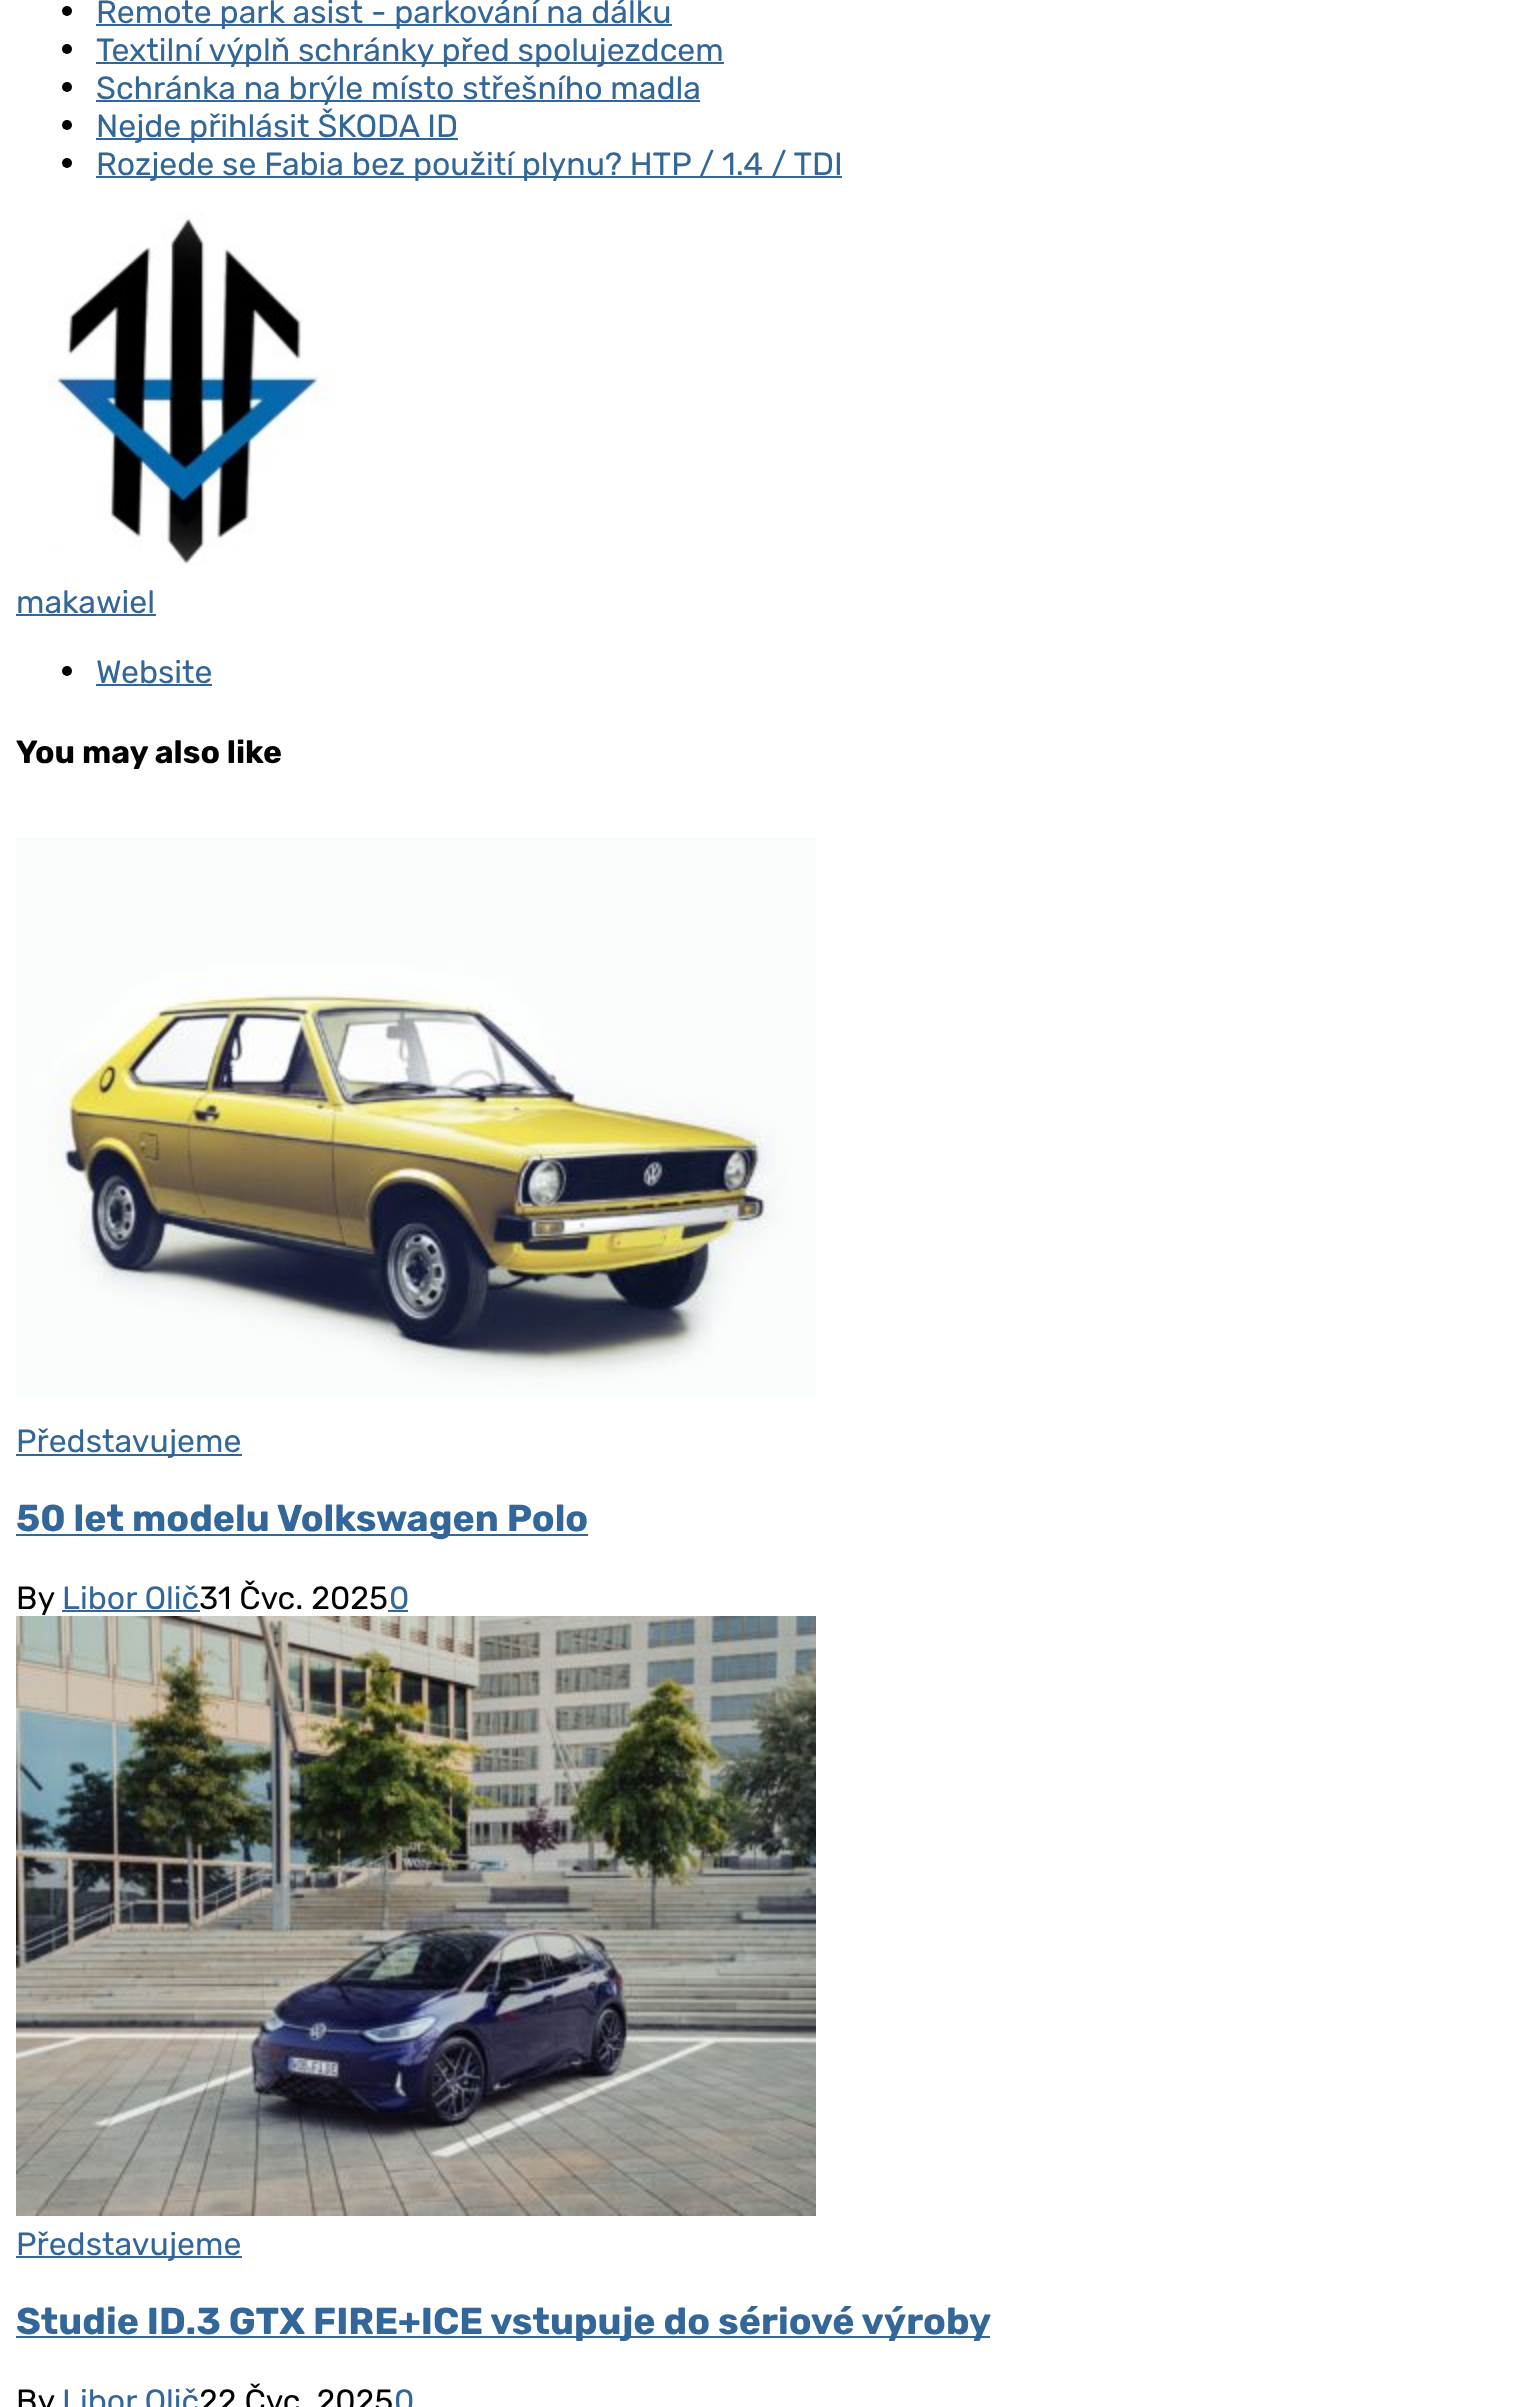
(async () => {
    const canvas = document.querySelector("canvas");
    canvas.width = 1526;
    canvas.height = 2407;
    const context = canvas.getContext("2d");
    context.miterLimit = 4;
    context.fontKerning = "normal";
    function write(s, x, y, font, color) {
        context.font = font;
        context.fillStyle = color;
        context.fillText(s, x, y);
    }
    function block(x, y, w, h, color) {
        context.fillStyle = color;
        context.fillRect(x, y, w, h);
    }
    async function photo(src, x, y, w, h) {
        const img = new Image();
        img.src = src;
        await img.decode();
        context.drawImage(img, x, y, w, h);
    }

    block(0, 0, 1526, 2407, "rgb(255, 255, 255)");
    context.fillStyle = "rgb(0, 0, 0)";
    context.beginPath();
    context.arc(67, 11, 5, 0, Math.PI * 2);
    context.fill();
    block(96, 24, 576, 2, "rgb(51, 102, 153)");
    write("Remote park asist - parkování na dálku", 96, 23, "32px Rubik", "rgb(51, 102, 153)");
    context.fillStyle = "rgb(0, 0, 0)";
    context.beginPath();
    context.arc(67, 49, 5, 0, Math.PI * 2);
    context.fill();
    block(96, 62, 628, 2, "rgb(51, 102, 153)");
    write("Textilní výplň schránky před spolujezdcem", 96, 61, "32px Rubik", "rgb(51, 102, 153)");
    context.fillStyle = "rgb(0, 0, 0)";
    context.beginPath();
    context.arc(67, 87, 5, 0, Math.PI * 2);
    context.fill();
    block(96, 100, 604, 2, "rgb(51, 102, 153)");
    write("Schránka na brýle místo střešního madla", 96, 99, "32px Rubik", "rgb(51, 102, 153)");
    context.fillStyle = "rgb(0, 0, 0)";
    context.beginPath();
    context.arc(67, 125, 5, 0, Math.PI * 2);
    context.fill();
    block(96, 138, 362, 2, "rgb(51, 102, 153)");
    write("Nejde přihlásit ŠKODA ID", 96, 137, "32px Rubik", "rgb(51, 102, 153)");
    context.fillStyle = "rgb(0, 0, 0)";
    context.beginPath();
    context.arc(67, 163, 5, 0, Math.PI * 2);
    context.fill();
    block(96, 176, 746, 2, "rgb(51, 102, 153)");
    write("Rozjede se Fabia bez použití plynu? HTP / 1.4 / TDI", 96, 175, "32px Rubik", "rgb(51, 102, 153)");
    await photo("media/1.png", 47, 214, 289, 351);
    write("makawiel", 16, 613, "32px Rubik", "rgb(51, 102, 153)");
    block(16, 614, 140, 2, "rgb(51, 102, 153)");
    context.fillStyle = "rgb(0, 0, 0)";
    context.beginPath();
    context.arc(67, 671, 5, 0, Math.PI * 2);
    context.fill();
    write("Website", 96, 683, "32px Rubik", "rgb(51, 102, 153)");
    block(96, 684, 116, 2, "rgb(51, 102, 153)");
    write("You may also like", 16, 763, "bold 32px Rubik", "rgb(0, 0, 0)");
    await photo("media/2.png", 16, 837, 800, 562);
    block(16, 1454, 226, 2, "rgb(51, 102, 153)");
    write("Představujeme", 16, 1452, "32px Rubik", "rgb(51, 102, 153)");
    block(16, 1534, 572, 2, "rgb(51, 102, 153)");
    write("50 let modelu Volkswagen Polo", 16, 1531, "bold 37.45px Rubik", "rgb(51, 102, 153)");
    write("By", 16, 1609, "32px Rubik", "rgb(0, 0, 0)");
    block(62, 1610, 138, 2, "rgb(51, 102, 153)");
    write("Libor Olič", 62, 1609, "32px Rubik", "rgb(51, 102, 153)");
    write("31 Čvc. 2025", 199, 1609, "32px Rubik", "rgb(0, 0, 0)");
    write("0", 389, 1609, "32px Rubik", "rgb(51, 102, 153)");
    block(388, 1610, 20, 2, "rgb(51, 102, 153)");
    await photo("media/3.png", 16, 1616, 800, 600);
    block(16, 2256, 226, 2, "rgb(51, 102, 153)");
    write("Představujeme", 16, 2255, "32px Rubik", "rgb(51, 102, 153)");
    block(16, 2336, 974, 2, "rgb(51, 102, 153)");
    write("Studie ID.3 GTX FIRE+ICE vstupuje do sériové výroby", 16, 2334, "bold 37.45px Rubik", "rgb(51, 102, 153)");
    write("By", 16, 2412, "32px Rubik", "rgb(0, 0, 0)");
    write("Libor Olič", 62, 2412, "32px Rubik", "rgb(51, 102, 153)");
    write("22 Čvc. 2025", 199, 2412, "32px Rubik", "rgb(0, 0, 0)");
    write("0", 394, 2412, "32px Rubik", "rgb(51, 102, 153)");
})();
